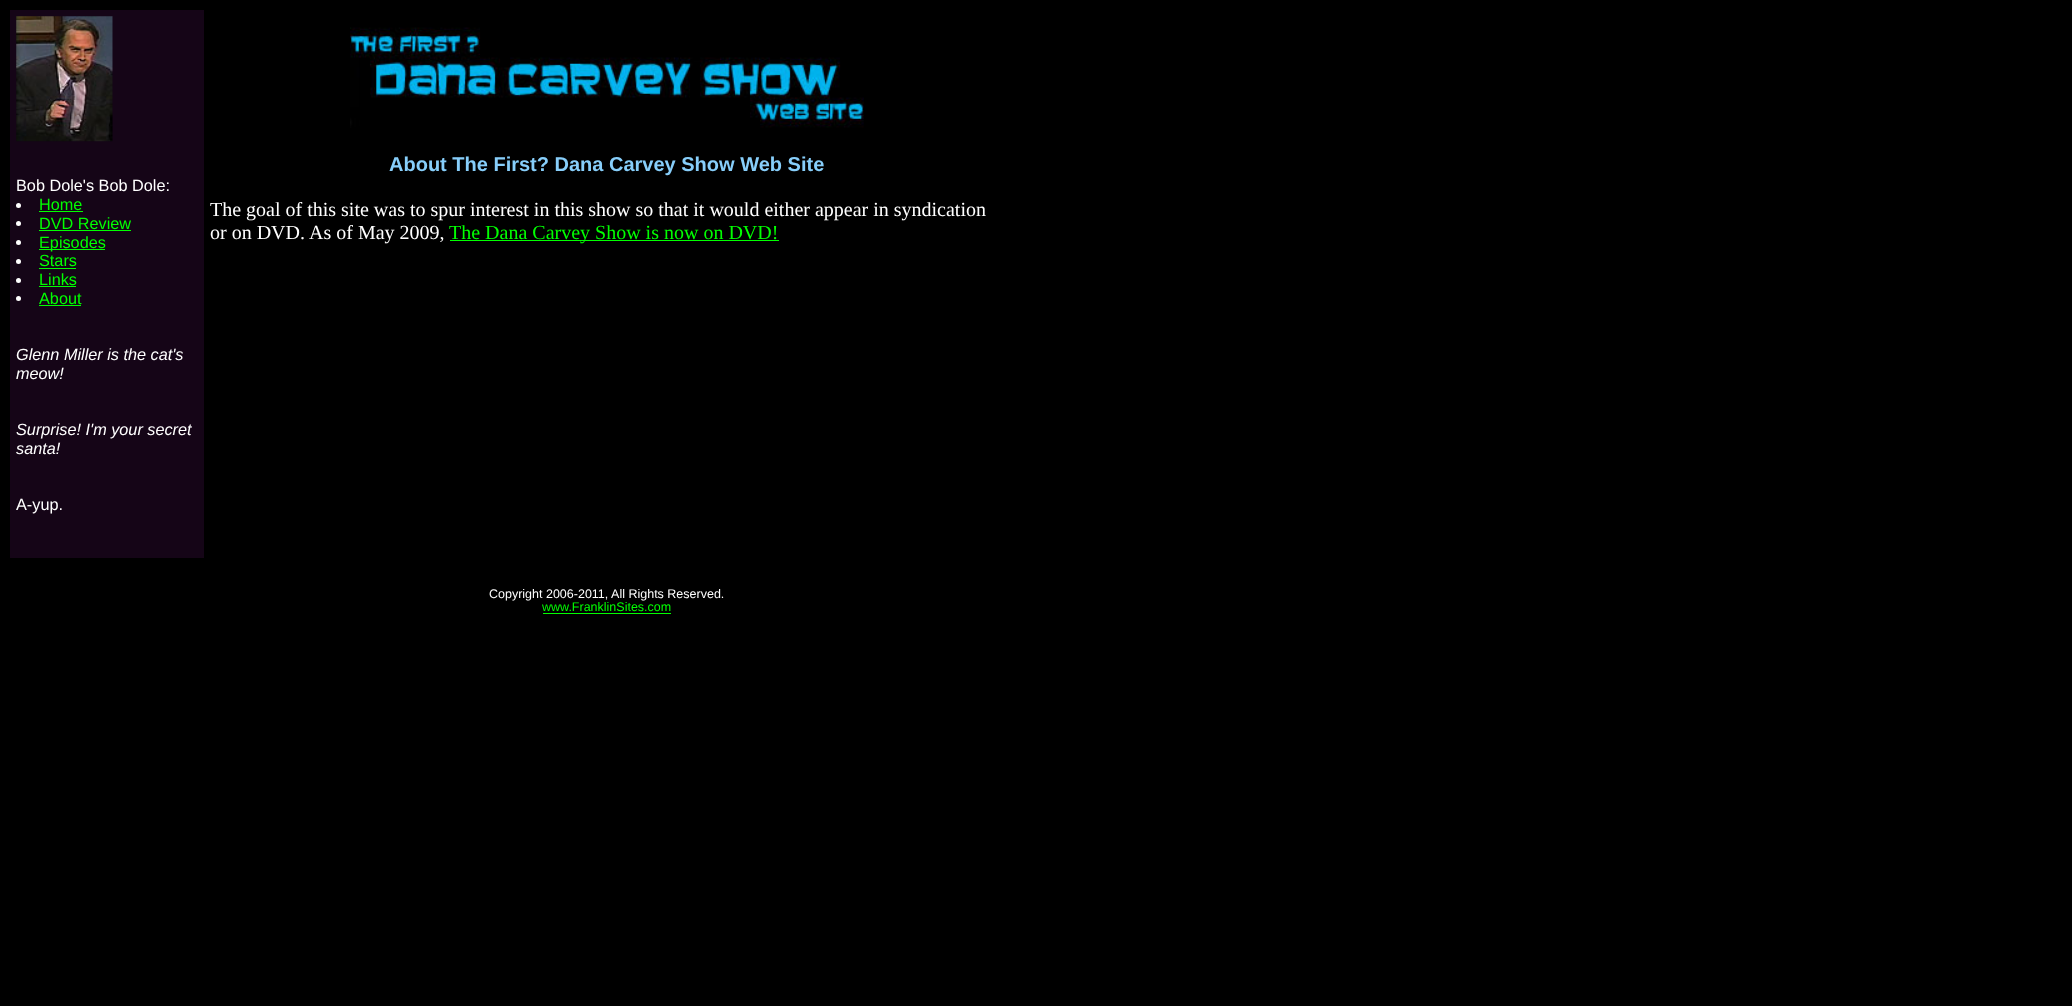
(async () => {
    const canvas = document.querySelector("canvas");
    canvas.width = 2072;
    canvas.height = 1006;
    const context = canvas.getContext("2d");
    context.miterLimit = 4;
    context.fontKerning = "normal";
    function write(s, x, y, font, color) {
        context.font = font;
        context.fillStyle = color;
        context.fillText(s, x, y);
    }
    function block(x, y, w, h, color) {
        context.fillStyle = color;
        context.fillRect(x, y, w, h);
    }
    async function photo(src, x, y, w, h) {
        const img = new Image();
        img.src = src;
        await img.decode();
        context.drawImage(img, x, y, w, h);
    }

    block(0, 0, 2072, 1006, "rgb(0, 0, 0)");
    block(10, 10, 194, 548, "rgb(21, 5, 23)");
    await photo("media/1.png", 16, 16, 97, 126);
    await photo("media/2.png", 350, 27, 514, 101);
    write("Bob Dole's Bob Dole:", 16, 191, "16.25px Liberation Sans", "rgb(255, 255, 255)");
    context.beginPath();
    context.arc(18.5, 205.5, 2.5, 0, Math.PI * 2);
    context.fill();
    write("Home", 39, 210, "16.25px Liberation Sans", "rgb(0, 255, 0)");
    block(39, 211, 44, 1, "rgb(0, 255, 0)");
    context.fillStyle = "rgb(255, 255, 255)";
    context.beginPath();
    context.arc(18.5, 223.5, 2.5, 0, Math.PI * 2);
    context.fill();
    write("DVD Review", 39, 229, "16.25px Liberation Sans", "rgb(0, 255, 0)");
    block(39, 230, 92, 1, "rgb(0, 255, 0)");
    context.fillStyle = "rgb(255, 255, 255)";
    context.beginPath();
    context.arc(18.5, 242.5, 2.5, 0, Math.PI * 2);
    context.fill();
    block(39, 249, 66, 1, "rgb(0, 255, 0)");
    write("Episodes", 39, 248, "16.25px Liberation Sans", "rgb(0, 255, 0)");
    context.fillStyle = "rgb(255, 255, 255)";
    context.beginPath();
    context.arc(18.5, 261.5, 2.5, 0, Math.PI * 2);
    context.fill();
    write("Stars", 39, 266, "16.25px Liberation Sans", "rgb(0, 255, 0)");
    block(39, 268, 37, 1, "rgb(0, 255, 0)");
    context.fillStyle = "rgb(255, 255, 255)";
    context.beginPath();
    context.arc(18.5, 280.5, 2.5, 0, Math.PI * 2);
    context.fill();
    write("Links", 39, 285, "16.25px Liberation Sans", "rgb(0, 255, 0)");
    block(39, 286, 37, 1, "rgb(0, 255, 0)");
    context.fillStyle = "rgb(255, 255, 255)";
    context.beginPath();
    context.arc(18.5, 298.5, 2.5, 0, Math.PI * 2);
    context.fill();
    write("About", 39, 304, "16.25px Liberation Sans", "rgb(0, 255, 0)");
    block(39, 305, 42, 1, "rgb(0, 255, 0)");
    write("Glenn Miller is the cat's", 16, 360, "italic 16.25px Liberation Sans", "rgb(255, 255, 255)");
    write("meow!", 16, 379, "italic 16.25px Liberation Sans", "rgb(255, 255, 255)");
    write("Surprise! I'm your secret", 16, 435, "italic 16.25px Liberation Sans", "rgb(255, 255, 255)");
    write("santa!", 16, 454, "italic 16.25px Liberation Sans", "rgb(255, 255, 255)");
    write("A-yup.", 16, 510, "16.25px Liberation Sans", "rgb(255, 255, 255)");
    write("About The First? Dana Carvey Show Web Site", 389, 171, "bold 20px Liberation Sans", "rgb(135, 206, 250)");
    write("The goal of this site was to spur interest in this show so that it would either appear in syndication", 210, 216, "20px Liberation Serif", "rgb(255, 255, 255)");
    write("or on DVD.", 210, 239, "20px Liberation Serif", "rgb(255, 255, 255)");
    write("As of May 2009,", 309, 239, "20px Liberation Serif", "rgb(255, 255, 255)");
    block(450, 240, 329, 1, "rgb(0, 255, 0)");
    write("The Dana Carvey Show is now on DVD!", 449, 239, "20px Liberation Serif", "rgb(0, 255, 0)");
    write("Copyright 2006-2011, All Rights Reserved.", 489, 598, "12.5px Liberation Sans", "rgb(255, 255, 255)");
    write("www.FranklinSites.com", 542, 611, "12.5px Liberation Sans", "rgb(0, 255, 0)");
    block(543, 613, 128, 1, "rgb(0, 255, 0)");
})();
